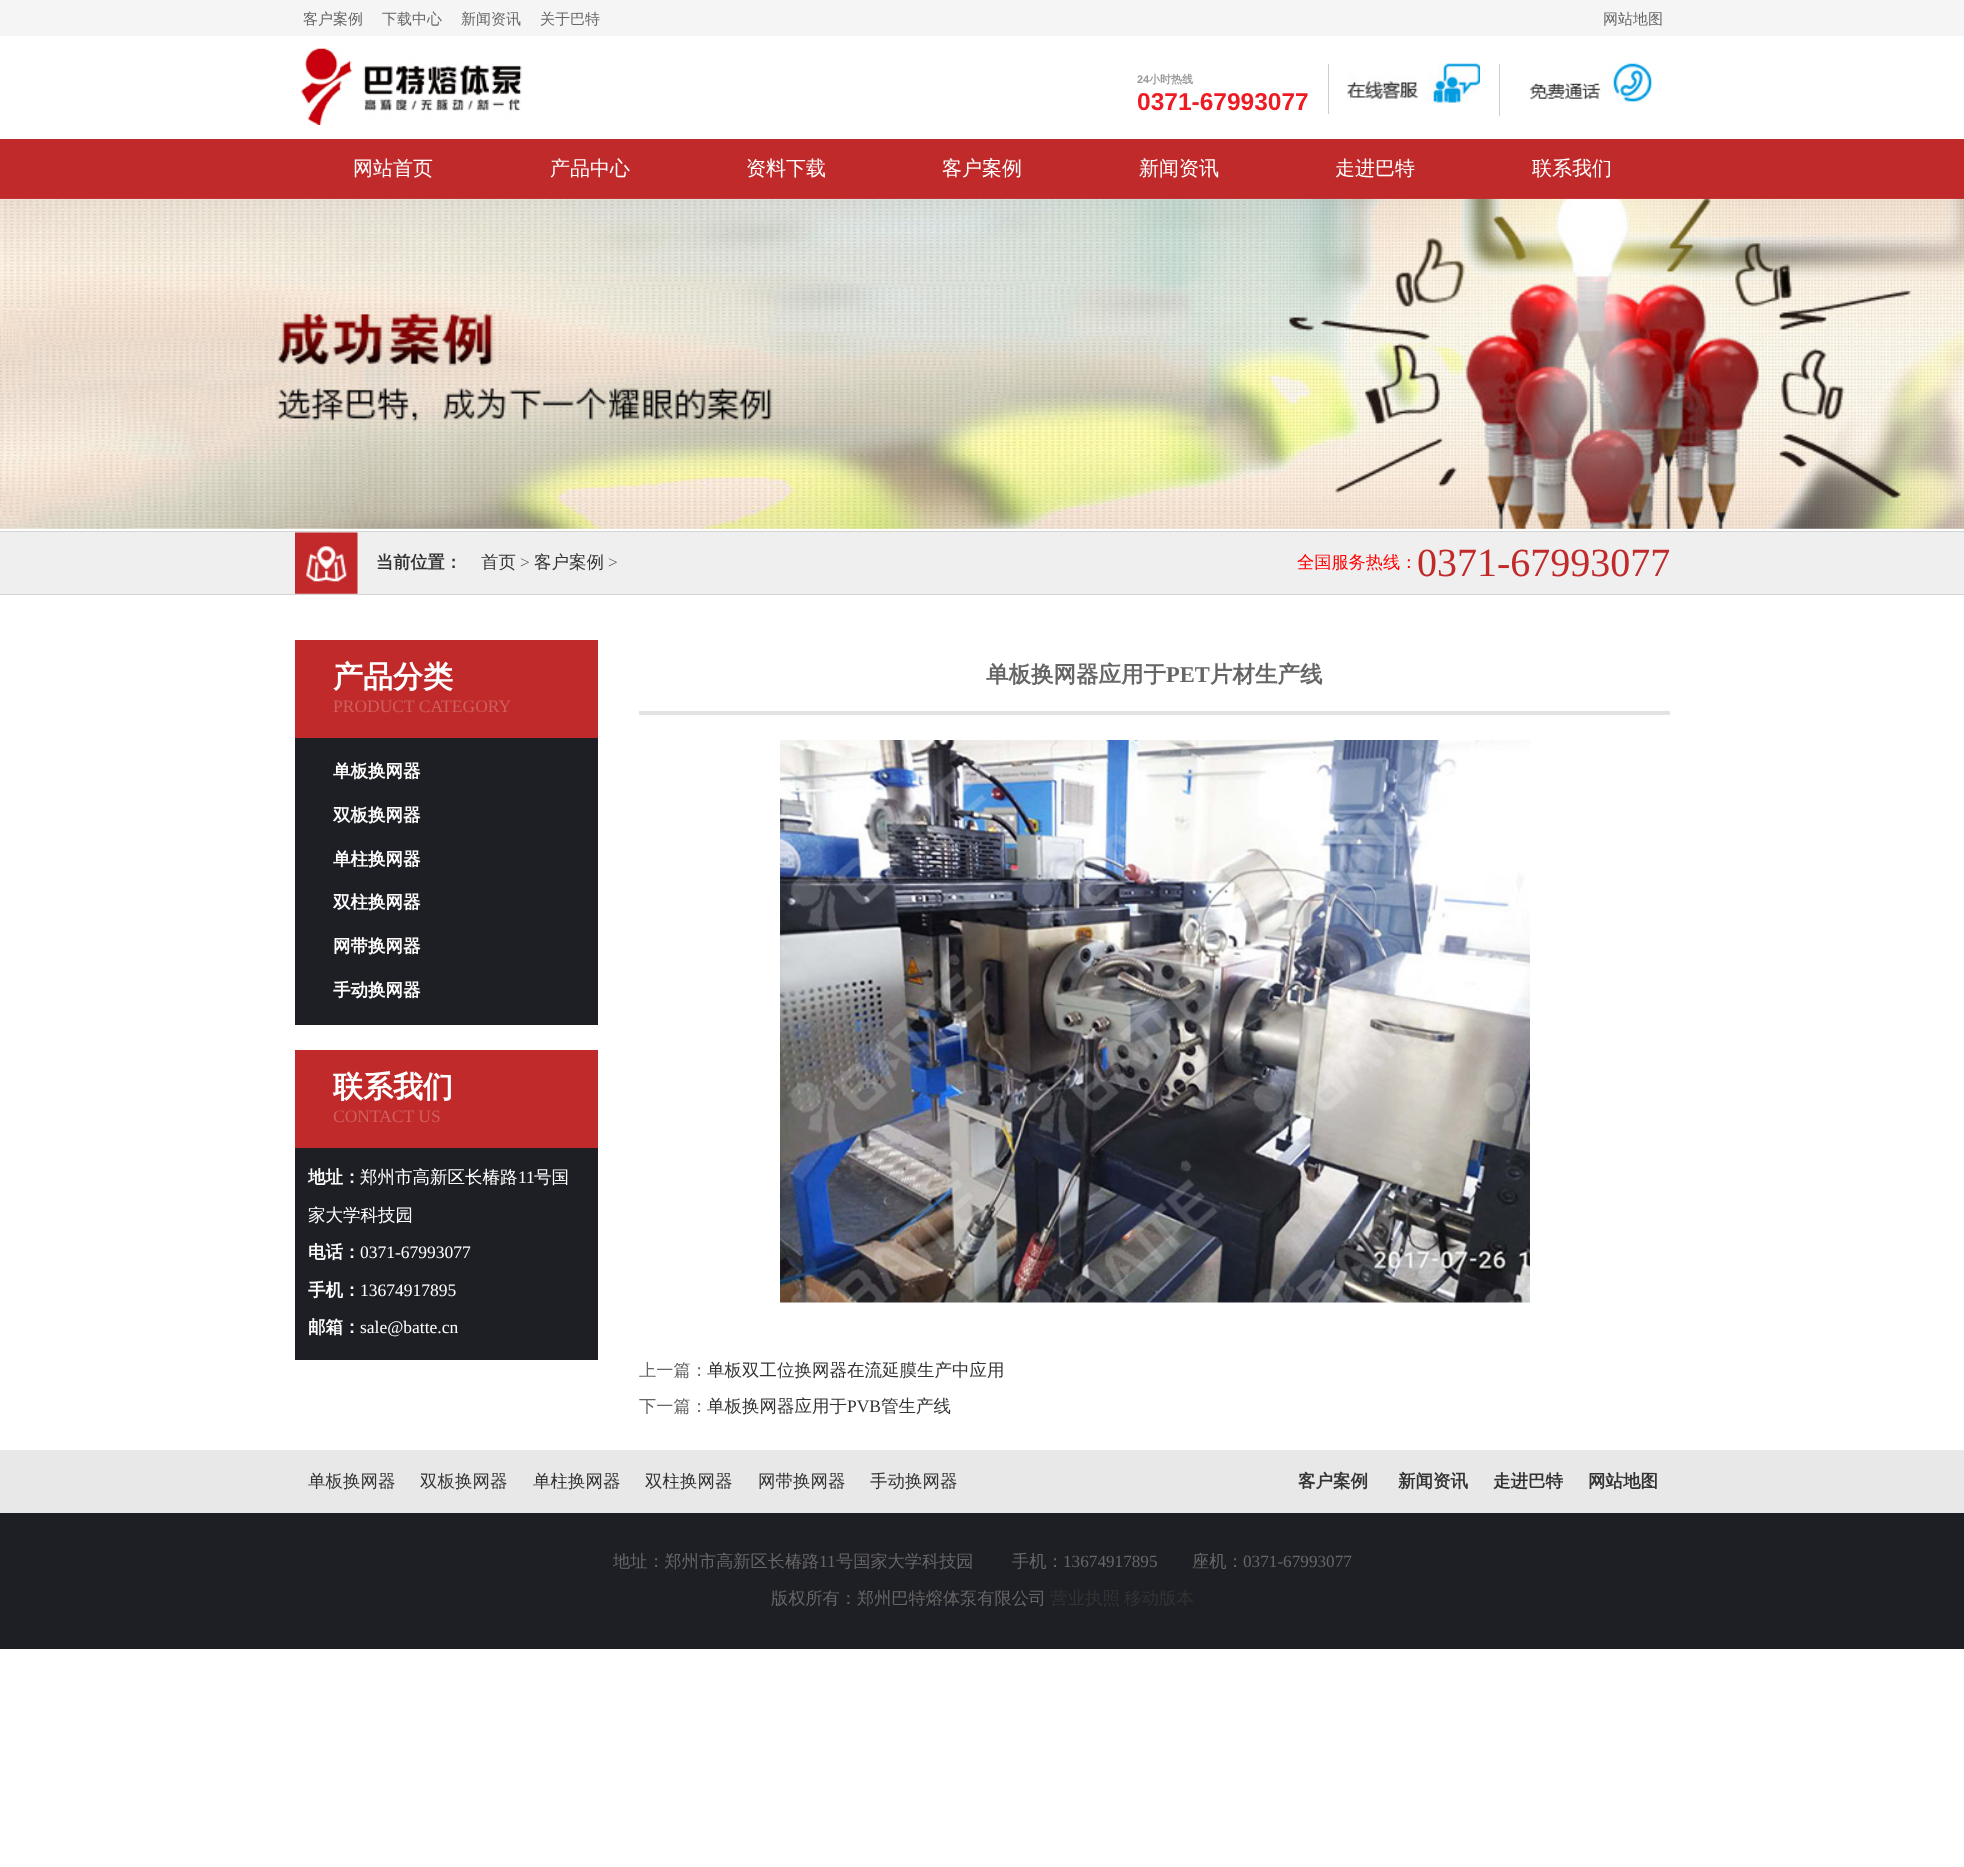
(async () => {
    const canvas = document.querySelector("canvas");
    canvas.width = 1964;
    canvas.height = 1867;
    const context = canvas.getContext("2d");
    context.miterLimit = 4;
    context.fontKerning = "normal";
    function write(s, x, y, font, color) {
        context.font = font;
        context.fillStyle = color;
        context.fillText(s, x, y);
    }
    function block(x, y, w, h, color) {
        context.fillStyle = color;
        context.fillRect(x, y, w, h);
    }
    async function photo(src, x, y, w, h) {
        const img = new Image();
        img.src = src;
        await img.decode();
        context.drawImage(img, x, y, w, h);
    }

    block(0, 0, 1964, 1867, "rgb(255, 255, 255)");
    block(0, 0, 1964, 36, "rgb(245, 245, 245)");
    write("客户案例", 303, 24, "500 15px WenQuanYi Zen Hei", "rgb(102, 102, 102)");
    write("下载中心", 382, 24, "500 15px WenQuanYi Zen Hei", "rgb(102, 102, 102)");
    write("新闻资讯", 461, 24, "500 15px WenQuanYi Zen Hei", "rgb(102, 102, 102)");
    write("关于巴特", 540, 24, "500 15px WenQuanYi Zen Hei", "rgb(102, 102, 102)");
    write("网站地图", 1603, 24, "500 15px WenQuanYi Zen Hei", "rgb(102, 102, 102)");
    await photo("media/1.png", 301, 48, 221, 77);
    block(1328, 64, 1, 50, "rgb(204, 204, 204)");
    write("24", 1137, 83, "bold 11px Liberation Sans", "rgb(153, 153, 153)");
    write("小时热线", 1149, 83, "bold 11px WenQuanYi Zen Hei", "rgb(153, 153, 153)");
    write("0371-67993077", 1137, 110, "bold 24.5px Liberation Sans", "rgb(237, 27, 35)");
    block(1499, 64, 1, 52, "rgb(204, 204, 204)");
    await photo("media/2.png", 1347, 63, 133, 40);
    await photo("media/3.png", 1529, 63, 123, 39);
    block(0, 139, 1964, 60, "rgb(193, 42, 42)");
    write("网站首页", 353, 175, "500 20px WenQuanYi Zen Hei", "rgb(255, 255, 255)");
    write("产品中心", 550, 175, "500 20px WenQuanYi Zen Hei", "rgb(255, 255, 255)");
    write("资料下载", 746, 175, "500 20px WenQuanYi Zen Hei", "rgb(255, 255, 255)");
    write("客户案例", 942, 175, "500 20px WenQuanYi Zen Hei", "rgb(255, 255, 255)");
    write("新闻资讯", 1139, 175, "500 20px WenQuanYi Zen Hei", "rgb(255, 255, 255)");
    write("走进巴特", 1335, 175, "500 20px WenQuanYi Zen Hei", "rgb(255, 255, 255)");
    write("联系我们", 1532, 175, "500 20px WenQuanYi Zen Hei", "rgb(255, 255, 255)");
    await photo("media/4.png", 0, 198, 1964, 331);
    block(0, 532, 1964, 62, "rgb(239, 239, 239)");
    block(0, 531, 1964, 1, "rgb(211, 211, 211)");
    block(0, 594, 1964, 1, "rgb(211, 211, 211)");
    await photo("media/5.png", 295, 532, 63, 62);
    write("当前位置：", 376, 568, "bold 17.2px WenQuanYi Zen Hei", "rgb(51, 51, 51)");
    write("首页", 481, 568, "500 17.5px WenQuanYi Zen Hei", "rgb(51, 51, 51)");
    write(">", 520, 568, "17.2px Liberation Serif", "rgb(102, 102, 102)");
    write("客户案例", 534, 568, "500 17.5px WenQuanYi Zen Hei", "rgb(51, 51, 51)");
    write(">", 608, 568, "17.2px Liberation Serif", "rgb(102, 102, 102)");
    write("全国服务热线：", 1297, 568, "500 17.2px WenQuanYi Zen Hei", "rgb(255, 0, 0)");
    write("0371-67993077", 1417, 576, "40px Liberation Serif", "rgb(193, 42, 42)");
    block(295, 640, 303, 98, "rgb(193, 42, 42)");
    write("产品分类", 333, 687, "bold 30px WenQuanYi Zen Hei", "rgb(255, 255, 255)");
    write("PRODUCT CATEGORY", 333, 712, "17.5px Liberation Serif", "rgb(209, 95, 95)");
    block(295, 738, 303, 287, "rgb(30, 31, 36)");
    write("单板换网器", 333, 777, "bold 17.5px WenQuanYi Zen Hei", "rgb(255, 255, 255)");
    write("双板换网器", 333, 821, "bold 17.5px WenQuanYi Zen Hei", "rgb(255, 255, 255)");
    write("单柱换网器", 333, 865, "bold 17.5px WenQuanYi Zen Hei", "rgb(255, 255, 255)");
    write("双柱换网器", 333, 908, "bold 17.5px WenQuanYi Zen Hei", "rgb(255, 255, 255)");
    write("网带换网器", 333, 952, "bold 17.5px WenQuanYi Zen Hei", "rgb(255, 255, 255)");
    write("手动换网器", 333, 996, "bold 17.5px WenQuanYi Zen Hei", "rgb(255, 255, 255)");
    block(295, 1050, 303, 98, "rgb(193, 42, 42)");
    write("联系我们", 333, 1097, "bold 30px WenQuanYi Zen Hei", "rgb(255, 255, 255)");
    write("CONTACT US", 333, 1122, "17.5px Liberation Serif", "rgb(209, 95, 95)");
    block(295, 1148, 303, 212, "rgb(30, 31, 36)");
    write("地址：", 308, 1183, "bold 17.5px WenQuanYi Zen Hei", "rgb(255, 255, 255)");
    write("郑州市高新区长椿路", 360, 1183, "500 17.5px WenQuanYi Zen Hei", "rgb(255, 255, 255)");
    write("11", 518, 1183, "17.5px Liberation Serif", "rgb(255, 255, 255)");
    write("号国", 534, 1183, "500 17.5px WenQuanYi Zen Hei", "rgb(255, 255, 255)");
    write("家大学科技园", 308, 1221, "500 17.5px WenQuanYi Zen Hei", "rgb(255, 255, 255)");
    write("电话：", 308, 1258, "bold 17.5px WenQuanYi Zen Hei", "rgb(255, 255, 255)");
    write("0371-67993077", 360, 1258, "17.5px Liberation Serif", "rgb(255, 255, 255)");
    write("手机：", 308, 1296, "bold 17.5px WenQuanYi Zen Hei", "rgb(255, 255, 255)");
    write("13674917895", 360, 1296, "17.5px Liberation Serif", "rgb(255, 255, 255)");
    write("邮箱：", 308, 1333, "bold 17.5px WenQuanYi Zen Hei", "rgb(255, 255, 255)");
    write("sale@batte.cn", 360, 1333, "17.5px Liberation Serif", "rgb(255, 255, 255)");
    block(639, 711, 1031, 4, "rgb(227, 227, 227)");
    write("单板换网器应用于", 986, 682, "bold 22.5px WenQuanYi Zen Hei", "rgb(102, 102, 102)");
    write("PET", 1166, 682, "bold 22.5px Liberation Serif", "rgb(102, 102, 102)");
    write("片材生产线", 1210, 682, "bold 22.5px WenQuanYi Zen Hei", "rgb(102, 102, 102)");
    await photo("media/6.png", 780, 740, 750, 563);
    write("上一篇：", 639, 1376, "500 17.2px WenQuanYi Zen Hei", "rgb(102, 102, 102)");
    write("单板双工位换网器在流延膜生产中应用", 707, 1376, "500 17.5px WenQuanYi Zen Hei", "rgb(51, 51, 51)");
    write("下一篇：", 639, 1412, "500 17.2px WenQuanYi Zen Hei", "rgb(102, 102, 102)");
    write("单板换网器应用于", 707, 1412, "500 17.5px WenQuanYi Zen Hei", "rgb(51, 51, 51)");
    write("PVB", 847, 1412, "17.5px Liberation Serif", "rgb(51, 51, 51)");
    write("管生产线", 881, 1412, "500 17.5px WenQuanYi Zen Hei", "rgb(51, 51, 51)");
    block(0, 1450, 1964, 63, "rgb(232, 232, 232)");
    write("单板换网器", 308, 1487, "500 17.5px WenQuanYi Zen Hei", "rgb(51, 51, 51)");
    write("双板换网器", 420, 1487, "500 17.5px WenQuanYi Zen Hei", "rgb(51, 51, 51)");
    write("单柱换网器", 533, 1487, "500 17.5px WenQuanYi Zen Hei", "rgb(51, 51, 51)");
    write("双柱换网器", 645, 1487, "500 17.5px WenQuanYi Zen Hei", "rgb(51, 51, 51)");
    write("网带换网器", 758, 1487, "500 17.5px WenQuanYi Zen Hei", "rgb(51, 51, 51)");
    write("手动换网器", 870, 1487, "500 17.5px WenQuanYi Zen Hei", "rgb(51, 51, 51)");
    write("客户案例", 1298, 1487, "bold 17.5px WenQuanYi Zen Hei", "rgb(51, 51, 51)");
    write("新闻资讯", 1398, 1487, "bold 17.5px WenQuanYi Zen Hei", "rgb(51, 51, 51)");
    write("走进巴特", 1493, 1487, "bold 17.5px WenQuanYi Zen Hei", "rgb(51, 51, 51)");
    write("网站地图", 1588, 1487, "bold 17.5px WenQuanYi Zen Hei", "rgb(51, 51, 51)");
    block(0, 1513, 1964, 136, "rgb(30, 31, 36)");
    write("地址：郑州市高新区长椿路", 613, 1567, "500 17.2px WenQuanYi Zen Hei", "rgb(102, 102, 102)");
    write("11", 819, 1567, "17.2px Liberation Serif", "rgb(102, 102, 102)");
    write("号国家大学科技园", 836, 1567, "500 17.2px WenQuanYi Zen Hei", "rgb(102, 102, 102)");
    write("手机：", 1012, 1567, "500 17.2px WenQuanYi Zen Hei", "rgb(102, 102, 102)");
    write("13674917895", 1063, 1567, "17.2px Liberation Serif", "rgb(102, 102, 102)");
    write("座机：", 1192, 1567, "500 17.2px WenQuanYi Zen Hei", "rgb(102, 102, 102)");
    write("0371-67993077", 1243, 1567, "17.2px Liberation Serif", "rgb(102, 102, 102)");
    write("版权所有：郑州巴特熔体泵有限公司", 771, 1604, "500 17.2px WenQuanYi Zen Hei", "rgb(102, 102, 102)");
    write("营业执照", 1050, 1604, "500 17.5px WenQuanYi Zen Hei", "rgb(51, 51, 51)");
    write("移动版本", 1124, 1604, "500 17.5px WenQuanYi Zen Hei", "rgb(51, 51, 51)");
})();
